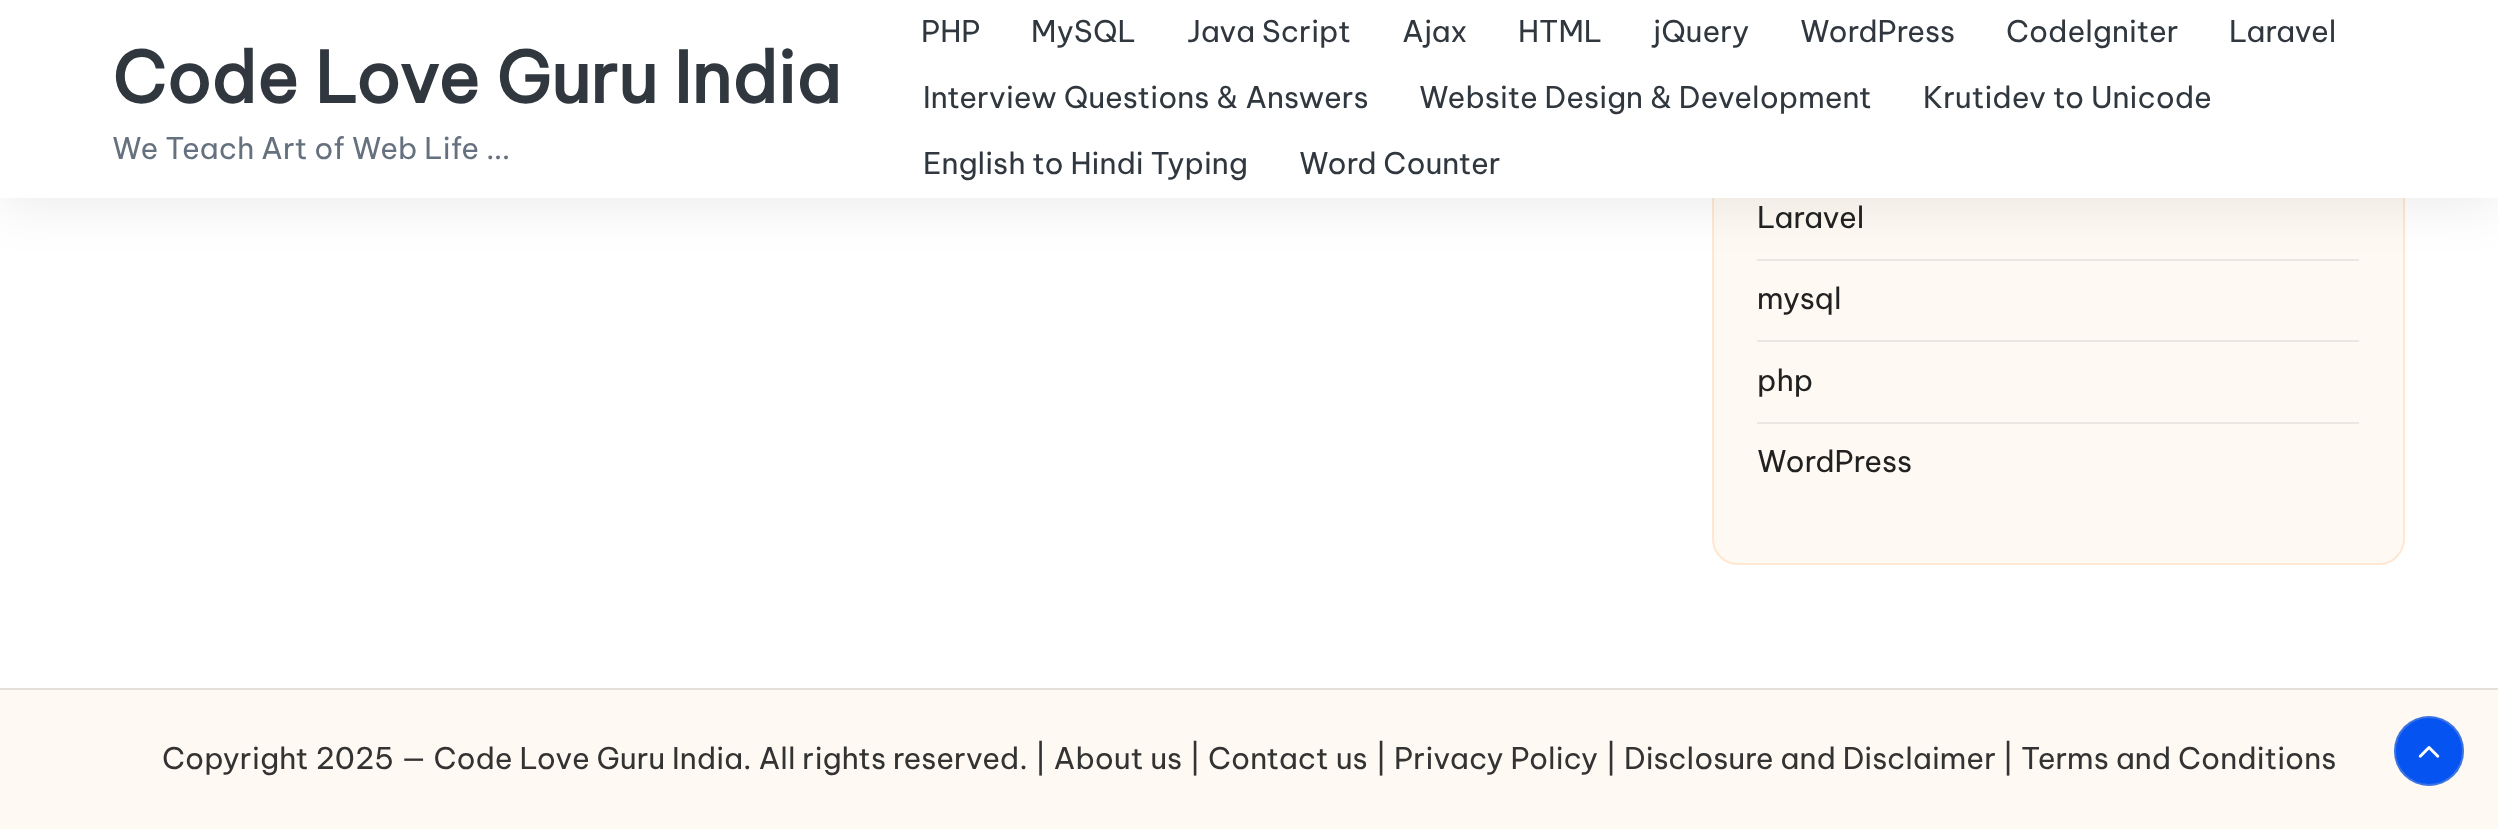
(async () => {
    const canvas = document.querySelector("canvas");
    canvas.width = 2498;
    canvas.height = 829;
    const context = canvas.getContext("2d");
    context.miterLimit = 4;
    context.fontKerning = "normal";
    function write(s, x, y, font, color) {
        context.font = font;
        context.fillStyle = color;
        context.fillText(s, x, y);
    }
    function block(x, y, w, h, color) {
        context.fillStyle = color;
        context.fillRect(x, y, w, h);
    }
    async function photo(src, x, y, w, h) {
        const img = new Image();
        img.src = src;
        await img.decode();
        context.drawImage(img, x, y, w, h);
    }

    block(0, 0, 2498, 829, "rgb(255, 255, 255)");
    context.fillStyle = "rgb(255, 249, 243)";
    context.beginPath();
    context.roundRect(1713, -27, 691, 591, 25);
    context.fill();
    context.strokeStyle = "rgb(255, 231, 210)";
    context.lineWidth = 2;
    context.stroke();
    block(1757, 259, 602, 2, "rgb(236, 231, 227)");
    context.fillStyle = "rgba(0, 0, 0, 0.08)";
    context.filter = "blur(26px)";
    context.beginPath();
    context.rect(0, 7, 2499, 198);
    context.fill();
    context.filter = "none";
    block(0, 0, 2498, 198, "rgb(255, 255, 255)");
    write("Code Love Guru India", 112, 103, "bold 70px Be Vietnam Pro", "rgb(48, 55, 62)");
    write("We Teach Art of Web Life ...", 112, 159, "29.75px Be Vietnam Pro", "rgb(102, 113, 127)");
    write("PHP", 921, 42, "29.75px Be Vietnam Pro", "rgb(48, 55, 62)");
    write("MySQL", 1031, 42, "29.75px Be Vietnam Pro", "rgb(48, 55, 62)");
    write("Java Script", 1187, 42, "29.75px Be Vietnam Pro", "rgb(48, 55, 62)");
    write("Ajax", 1402, 42, "29.75px Be Vietnam Pro", "rgb(48, 55, 62)");
    write("HTML", 1518, 42, "29.75px Be Vietnam Pro", "rgb(48, 55, 62)");
    write("jQuery", 1653, 42, "29.75px Be Vietnam Pro", "rgb(48, 55, 62)");
    write("WordPress", 1800, 42, "29.75px Be Vietnam Pro", "rgb(48, 55, 62)");
    write("Codelgniter", 2006, 42, "29.75px Be Vietnam Pro", "rgb(48, 55, 62)");
    write("Laravel", 2229, 42, "29.75px Be Vietnam Pro", "rgb(48, 55, 62)");
    write("Interview Questions & Answers", 923, 108, "29.75px Be Vietnam Pro", "rgb(48, 55, 62)");
    write("Website Design & Development", 1419, 108, "29.75px Be Vietnam Pro", "rgb(48, 55, 62)");
    write("Krutidev to Unicode", 1923, 108, "29.75px Be Vietnam Pro", "rgb(48, 55, 62)");
    write("English to Hindi Typing", 923, 174, "29.75px Be Vietnam Pro", "rgb(48, 55, 62)");
    write("Word Counter", 1299, 174, "29.75px Be Vietnam Pro", "rgb(48, 55, 62)");
    write("Laravel", 1757, 228, "29.75px Be Vietnam Pro", "rgb(33, 33, 33)");
    write("mysql", 1757, 309, "29.75px Be Vietnam Pro", "rgb(33, 33, 33)");
    block(1757, 340, 602, 2, "rgb(236, 231, 227)");
    write("php", 1757, 391, "29.75px Be Vietnam Pro", "rgb(33, 33, 33)");
    block(1757, 422, 602, 2, "rgb(236, 231, 227)");
    write("WordPress", 1757, 472, "29.75px Be Vietnam Pro", "rgb(33, 33, 33)");
    block(0, 690, 2498, 139, "rgb(255, 249, 243)");
    block(0, 688, 2498, 2, "rgb(230, 224, 219)");
    write("Copyright 2025 — Code Love Guru India. All rights reserved. | About us", 162, 769, "29.75px Be Vietnam Pro", "rgb(51, 51, 51)");
    write("| Contact us", 1189, 769, "29.75px Be Vietnam Pro", "rgb(51, 51, 51)");
    write("| Privacy Policy", 1375, 769, "29.75px Be Vietnam Pro", "rgb(51, 51, 51)");
    write("| Disclosure and Disclaimer", 1605, 769, "29.75px Be Vietnam Pro", "rgb(51, 51, 51)");
    write("| Terms and Conditions", 2002, 769, "29.75px Be Vietnam Pro", "rgb(51, 51, 51)");
    context.fillStyle = "rgb(5, 84, 242)";
    context.beginPath();
    context.arc(2429, 751, 35, 0, Math.PI * 2);
    context.fill();
    context.beginPath();
    context.arc(2429, 751, 34, 0, Math.PI * 2);
    context.strokeStyle = "rgba(190, 190, 190, 0.3)";
    context.stroke();
    await photo("media/1.png", 2418, 746, 22, 12);
})();
